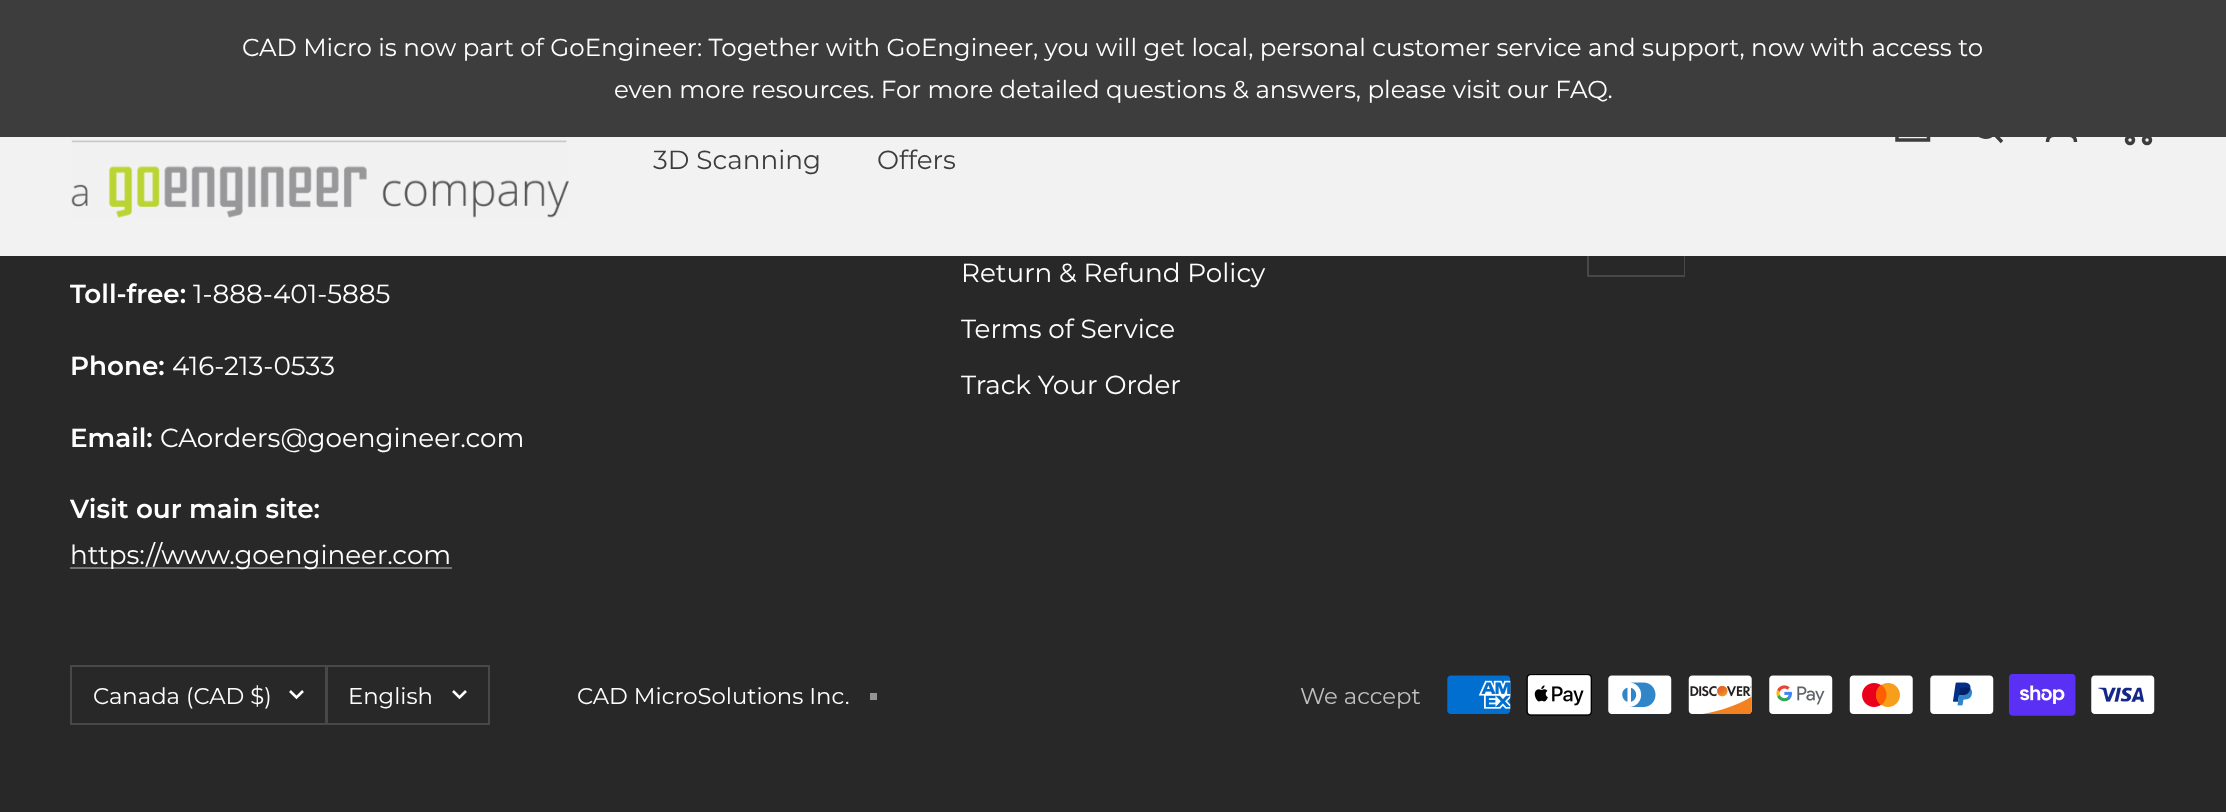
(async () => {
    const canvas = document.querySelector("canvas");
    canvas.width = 2226;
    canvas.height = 812;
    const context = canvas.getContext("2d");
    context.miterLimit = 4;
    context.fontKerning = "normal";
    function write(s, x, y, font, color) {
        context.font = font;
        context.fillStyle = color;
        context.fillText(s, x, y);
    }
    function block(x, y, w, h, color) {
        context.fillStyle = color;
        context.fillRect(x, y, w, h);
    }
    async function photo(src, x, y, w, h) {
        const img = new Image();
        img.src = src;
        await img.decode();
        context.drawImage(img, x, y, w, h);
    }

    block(0, 0, 2226, 812, "rgb(40, 40, 40)");
    context.fillStyle = "rgb(72, 72, 72)";
    context.beginPath();
    context.moveTo(1589, 275);
    context.lineTo(1589, 277);
    context.lineTo(1685, 277);
    context.lineTo(1685, 180);
    context.lineTo(1684, 180);
    context.lineTo(1684, 275);
    context.closePath();
    context.fill();
    block(0, 137, 2226, 119, "rgb(242, 242, 242)");
    context.beginPath();
    context.moveTo(1897, 115.5);
    context.lineTo(1928.5, 115.5);
    context.lineTo(1928.5, 140);
    context.lineTo(1897, 140);
    context.closePath();
    context.strokeStyle = "rgb(61, 61, 61)";
    context.lineWidth = 3.5;
    context.stroke();
    context.beginPath();
    context.moveTo(1994, 133.5);
    context.bezierCurveTo(2005, 122.5, 1988.5, 106.5, 1977.5, 117.5);
    context.bezierCurveTo(1966.5, 128.5, 1983, 144.5, 1994, 133.5);
    context.closePath();
    context.moveTo(1994, 133.5);
    context.lineTo(2002, 142);
    context.stroke();
    context.beginPath();
    context.moveTo(2047.5, 142);
    context.bezierCurveTo(2047.5, 133.5, 2056, 135, 2061.5, 135);
    context.bezierCurveTo(2067, 135, 2075.5, 133.5, 2075.5, 142);
    context.stroke();
    context.beginPath();
    context.arc(2130, 140, 3.5, 0, Math.PI * 2);
    context.stroke();
    context.beginPath();
    context.arc(2147, 140, 3.5, 0, Math.PI * 2);
    context.stroke();
    block(0, 0, 2226, 137, "rgb(61, 61, 61)");
    write("CAD Micro is now part of GoEngineer: Together with GoEngineer, you will get local, personal customer service and support, now with access to", 242, 56, "24.5px Montserrat", "rgb(255, 255, 255)");
    write("even more resources. For more detailed questions & answers, please visit our FAQ.", 614, 98, "24.5px Montserrat", "rgb(255, 255, 255)");
    await photo("media/1.png", 71, 140, 498, 78);
    write("3D Scanning", 653, 169, "26.25px Montserrat", "rgb(61, 61, 61)");
    write("Offers", 877, 169, "26.25px Montserrat", "rgb(61, 61, 61)");
    context.fillStyle = "rgb(72, 72, 72)";
    context.beginPath();
    context.moveTo(1587, 180);
    context.lineTo(1587, 277);
    context.lineTo(1684, 277);
    context.lineTo(1684, 180);
    context.lineTo(1684, 275);
    context.lineTo(1587, 275);
    context.closePath();
    context.fill();
    block(1587, 256, 2, 19, "rgb(72, 72, 72)");
    write("Toll-free:", 70, 303, "600 26.25px Montserrat", "rgb(255, 255, 255)");
    write("1-888-401-5885", 193, 303, "26.25px Montserrat", "rgb(255, 255, 255)");
    write("Phone:", 70, 375, "600 26.25px Montserrat", "rgb(255, 255, 255)");
    write("416-213-0533", 172, 375, "26.25px Montserrat", "rgb(255, 255, 255)");
    write("Email:", 70, 447, "600 26.25px Montserrat", "rgb(255, 255, 255)");
    write("CAorders@goengineer.com", 160, 447, "26.25px Montserrat", "rgb(255, 255, 255)");
    write("Visit our main site:", 70, 518, "600 26.25px Montserrat", "rgb(255, 255, 255)");
    block(70, 567, 382, 2, "rgb(115, 115, 115)");
    write("https://www.goengineer.com", 70, 564, "26.25px Montserrat", "rgb(255, 255, 255)");
    write("Return & Refund Policy", 961, 282, "26.25px Montserrat", "rgb(255, 255, 255)");
    write("Terms of Service", 961, 338, "26.25px Montserrat", "rgb(255, 255, 255)");
    write("Track Your Order", 961, 394, "26.25px Montserrat", "rgb(255, 255, 255)");
    context.strokeStyle = "rgb(72, 72, 72)";
    context.lineWidth = 2;
    context.strokeRect(71, 666, 255, 58);
    write("Canada (CAD $)", 93, 704, "22.75px Montserrat", "rgb(255, 255, 255)");
    context.beginPath();
    context.moveTo(290, 691);
    context.lineTo(296.5, 697.5);
    context.lineTo(303, 691);
    context.strokeStyle = "rgb(255, 255, 255)";
    context.lineWidth = 2.6;
    context.stroke();
    context.strokeStyle = "rgb(72, 72, 72)";
    context.lineWidth = 2;
    context.strokeRect(327, 666, 162, 58);
    write("English", 348, 704, "22.75px Montserrat", "rgb(255, 255, 255)");
    context.beginPath();
    context.moveTo(453, 691);
    context.lineTo(459.5, 697.5);
    context.lineTo(466, 691);
    context.strokeStyle = "rgb(255, 255, 255)";
    context.lineWidth = 2.6;
    context.stroke();
    write("CAD MicroSolutions Inc.", 577, 704, "22.75px Montserrat", "rgb(255, 255, 255)");
    block(870, 693, 7, 7, "rgb(148, 148, 148)");
    write("We accept", 1300, 704, "22.75px Montserrat", "rgb(191, 191, 191)");
    await photo("media/2.png", 1447, 675, 64, 39);
    await photo("media/3.png", 1526, 674, 66, 42);
    await photo("media/4.png", 1608, 675, 64, 39);
    await photo("media/5.png", 1688, 675, 64, 39);
    await photo("media/6.png", 1769, 675, 64, 39);
    await photo("media/7.png", 1849, 675, 64, 39);
    await photo("media/8.png", 1930, 675, 64, 39);
    await photo("media/9.png", 2009, 674, 67, 42);
    await photo("media/10.png", 2091, 675, 64, 39);
})();
